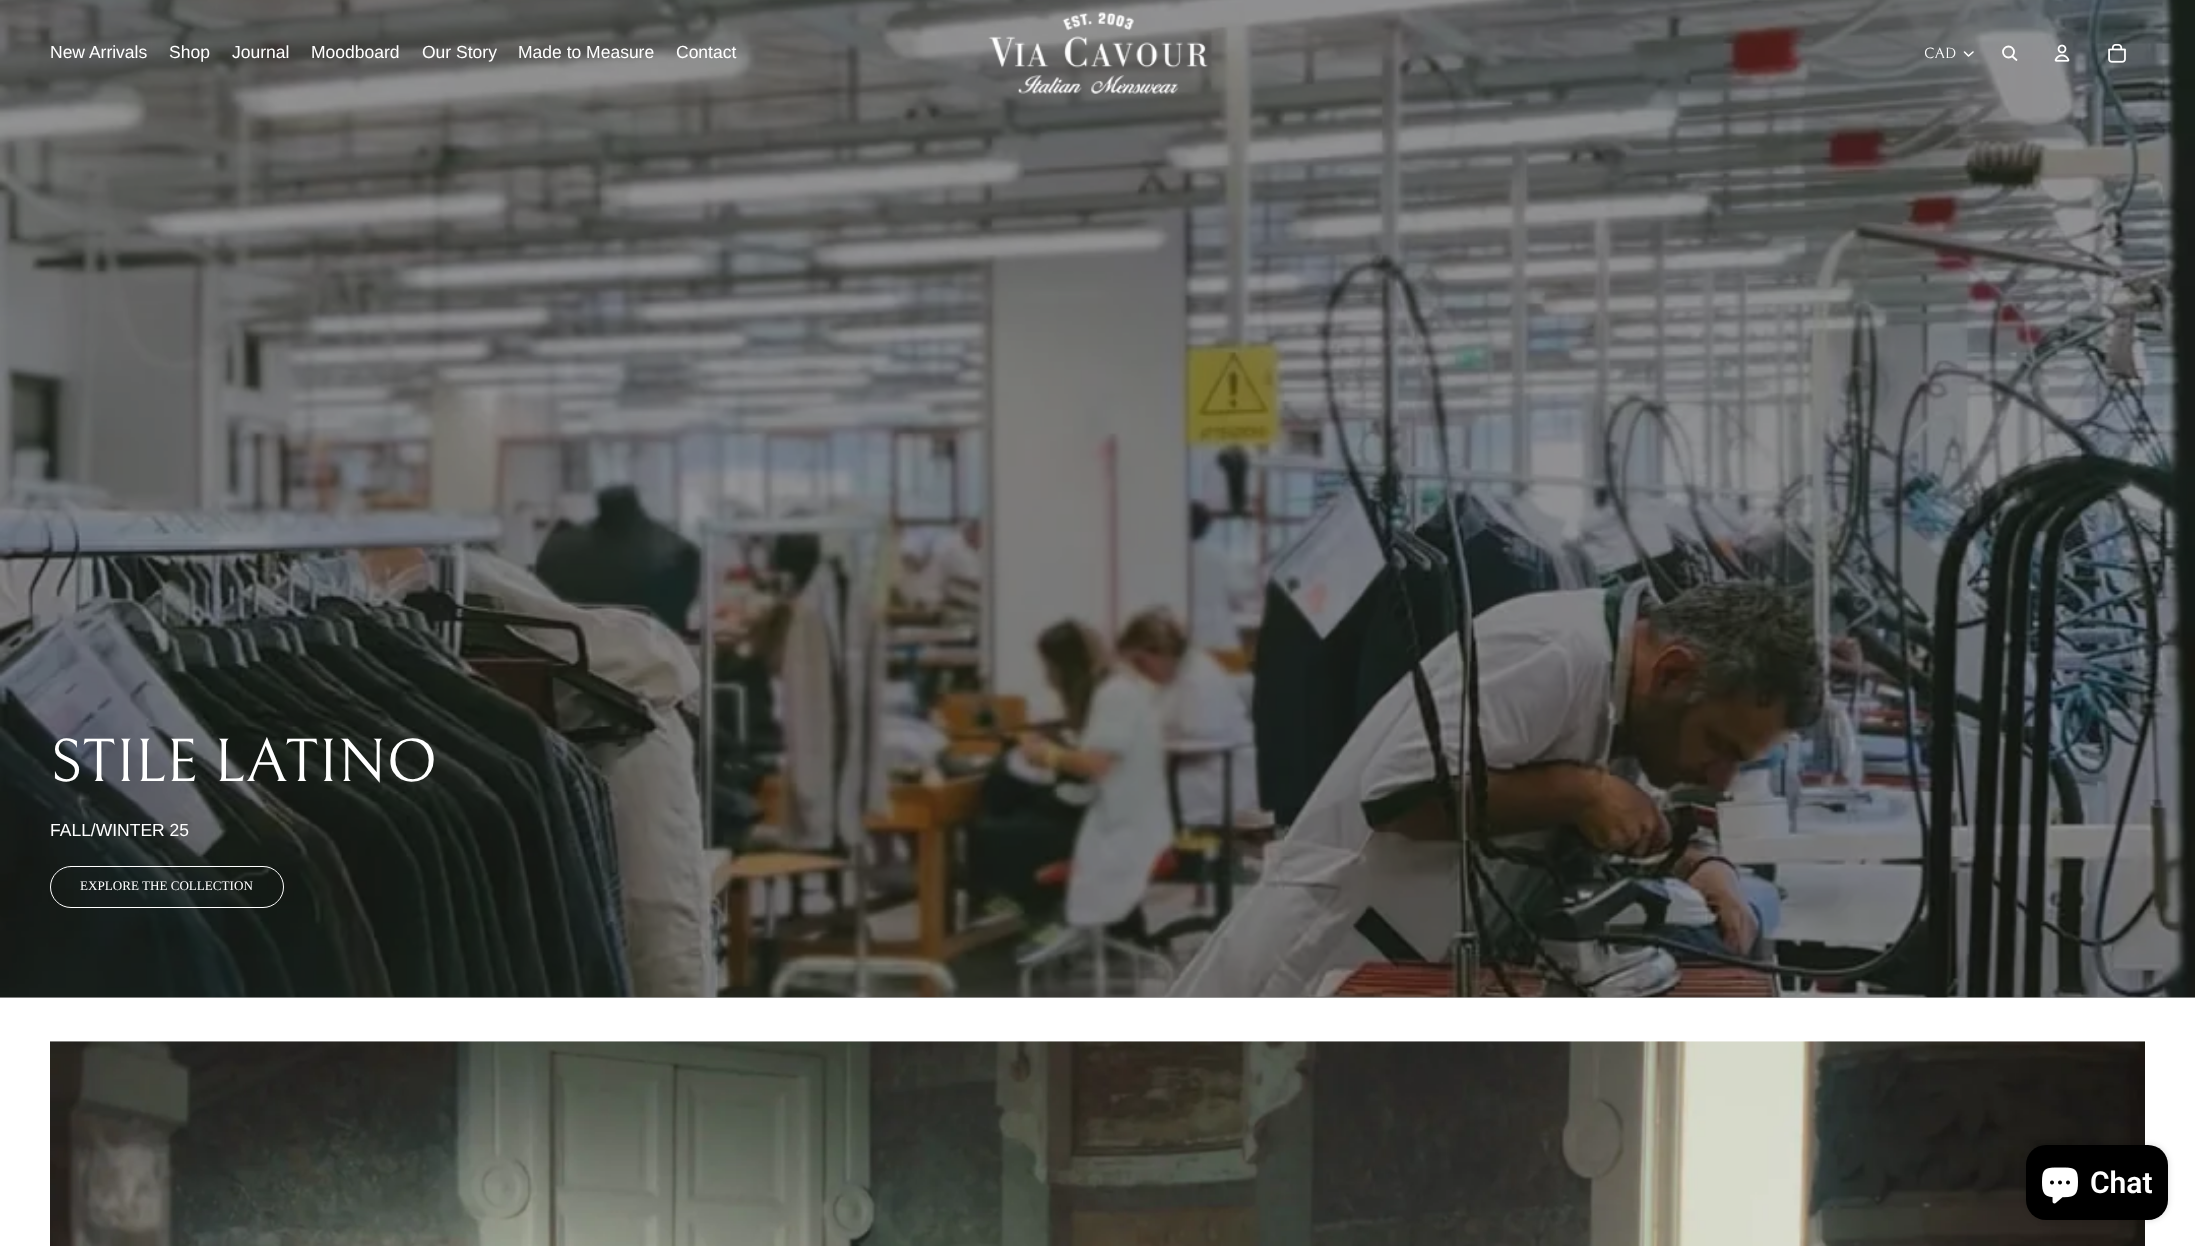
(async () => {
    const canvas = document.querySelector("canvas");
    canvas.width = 2195;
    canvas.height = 1246;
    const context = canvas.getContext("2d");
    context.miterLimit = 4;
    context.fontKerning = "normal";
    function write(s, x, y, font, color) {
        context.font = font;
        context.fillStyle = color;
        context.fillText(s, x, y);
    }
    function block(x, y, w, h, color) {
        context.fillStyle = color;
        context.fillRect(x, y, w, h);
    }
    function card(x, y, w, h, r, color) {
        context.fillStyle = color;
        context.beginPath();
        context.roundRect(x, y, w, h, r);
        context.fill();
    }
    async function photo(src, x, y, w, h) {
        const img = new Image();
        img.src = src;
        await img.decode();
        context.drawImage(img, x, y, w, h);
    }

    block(0, 0, 2195, 1246, "rgb(255, 255, 255)");
    block(0, 997, 2195, 1, "rgb(160, 160, 160)");
    await photo("media/4.png", 0, 0, 2195, 998);
    write("New Arrivals", 50, 58, "17.5px Liberation Sans", "rgb(255, 255, 255)");
    write("Shop", 169, 58, "17.5px Liberation Sans", "rgb(255, 255, 255)");
    write("Journal", 232, 58, "17.5px Liberation Sans", "rgb(255, 255, 255)");
    write("Moodboard", 311, 58, "17.5px Liberation Sans", "rgb(255, 255, 255)");
    write("Our Story", 422, 58, "17.5px Liberation Sans", "rgb(255, 255, 255)");
    write("Made to Measure", 518, 58, "17.5px Liberation Sans", "rgb(255, 255, 255)");
    write("Contact", 676, 58, "17.5px Liberation Sans", "rgb(255, 255, 255)");
    await photo("media/1.png", 988, 12, 220, 82);
    write("CAD", 1924, 58, "15px Bellefair", "rgb(255, 255, 255)");
    context.beginPath();
    context.moveTo(1973, 52);
    context.lineTo(1968.5, 56);
    context.lineTo(1964.5, 52);
    context.strokeStyle = "rgb(255, 255, 255)";
    context.lineWidth = 1.6;
    context.lineCap = "round";
    context.lineJoin = "round";
    context.stroke();
    context.beginPath();
    context.arc(2008.5, 52, 5.5, 0, Math.PI * 2);
    context.lineWidth = 1.8;
    context.stroke();
    context.beginPath();
    context.moveTo(2012.5, 56.5);
    context.lineTo(2016.5, 60);
    context.stroke();
    await photo("media/2.png", 2054, 44, 16, 18);
    await photo("media/3.png", 2108, 43, 18, 20);
    write("STILE LATINO", 50, 781, "61.25px Bellefair", "rgb(255, 255, 255)");
    write("FALL/WINTER 25", 50, 836, "17.5px Liberation Sans", "rgb(255, 255, 255)");
    context.beginPath();
    context.roundRect(50.5, 866.5, 233, 41, 20.5);
    context.lineWidth = 1;
    context.lineJoin = "miter";
    context.stroke();
    write("EXPLORE THE COLLECTION", 80, 890, "13.1px Liberation Serif", "rgb(255, 255, 255)");
    await photo("media/5.png", 50, 1041, 2095, 205);
    context.fillStyle = "rgba(0, 0, 0, 0.15)";
    context.filter = "blur(3px)";
    context.beginPath();
    context.roundRect(2026, 1145, 142, 75, 20);
    context.fill();
    context.filter = "none";
    card(2026, 1145, 142, 75, 20, "rgb(0, 0, 0)");
    await photo("media/6.png", 2042, 1167, 36, 37);
    write("Chat", 2090, 1193, "600 30px Roboto", "rgb(255, 255, 255)");
})();
